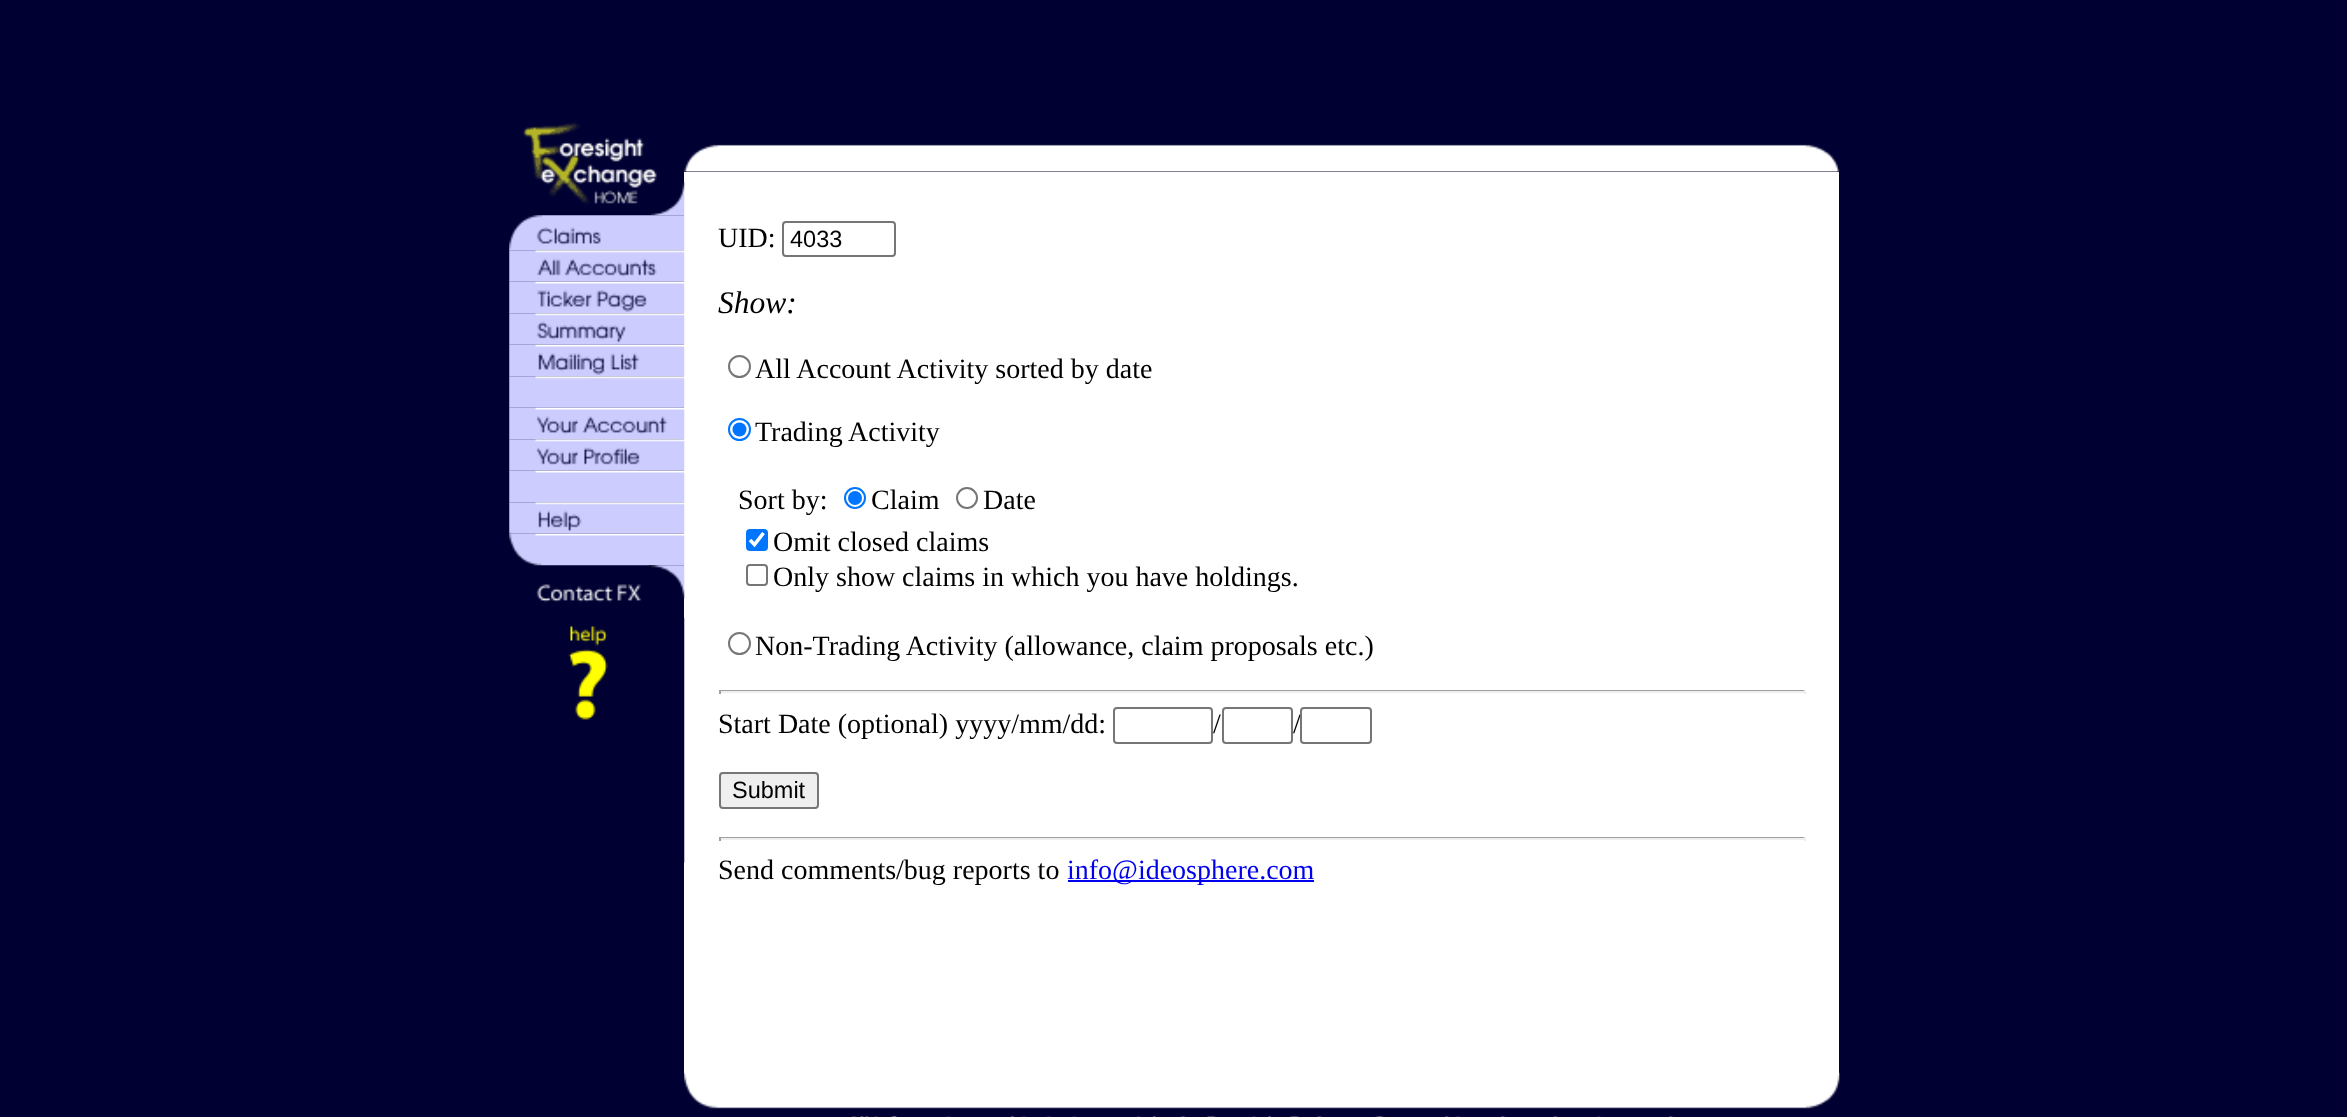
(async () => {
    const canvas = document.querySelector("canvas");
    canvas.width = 2347;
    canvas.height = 1117;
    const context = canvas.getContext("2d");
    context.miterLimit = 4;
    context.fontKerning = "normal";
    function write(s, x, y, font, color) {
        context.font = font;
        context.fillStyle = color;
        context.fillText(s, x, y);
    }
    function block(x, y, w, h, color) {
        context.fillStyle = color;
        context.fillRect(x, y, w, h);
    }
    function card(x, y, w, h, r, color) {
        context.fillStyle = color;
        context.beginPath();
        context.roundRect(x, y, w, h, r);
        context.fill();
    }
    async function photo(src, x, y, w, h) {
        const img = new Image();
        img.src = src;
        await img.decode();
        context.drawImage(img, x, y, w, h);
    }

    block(0, 0, 2347, 1117, "rgb(0, 0, 51)");
    block(684, 172, 1155, 901, "rgb(255, 255, 255)");
    await photo("media/1.png", 523, 122, 162, 94);
    await photo("media/2.png", 684, 144, 1156, 28);
    await photo("media/3.png", 509, 215, 176, 36);
    await photo("media/4.png", 509, 250, 176, 32);
    await photo("media/5.png", 509, 281, 176, 33);
    await photo("media/6.png", 509, 313, 176, 32);
    await photo("media/7.png", 509, 344, 176, 33);
    await photo("media/8.png", 509, 376, 176, 32);
    await photo("media/9.png", 509, 407, 176, 33);
    await photo("media/10.png", 509, 439, 176, 32);
    await photo("media/11.png", 509, 470, 176, 33);
    await photo("media/12.png", 509, 502, 176, 32);
    await photo("media/13.png", 509, 533, 176, 33);
    await photo("media/14.png", 536, 565, 149, 38);
    await photo("media/15.png", 568, 617, 117, 246);
    write("UID:", 718, 247, "28px Liberation Serif", "rgb(0, 0, 0)");
    context.beginPath();
    context.roundRect(783, 222, 112, 34, 3);
    context.strokeStyle = "rgb(118, 118, 118)";
    context.lineWidth = 2;
    context.stroke();
    write("4033", 790, 247, "23.5px Liberation Sans", "rgb(0, 0, 0)");
    write("Show:", 718, 313, "italic 31.5px Liberation Serif", "rgb(0, 0, 0)");
    context.beginPath();
    context.arc(739.5, 366.5, 10.5, 0, Math.PI * 2);
    context.stroke();
    write("All Account Activity sorted by date", 755, 378, "28px Liberation Serif", "rgb(0, 0, 0)");
    context.beginPath();
    context.arc(739.5, 429.5, 10.5, 0, Math.PI * 2);
    context.strokeStyle = "rgb(0, 117, 255)";
    context.stroke();
    context.fillStyle = "rgb(0, 117, 255)";
    context.beginPath();
    context.arc(739.5, 429.5, 7, 0, Math.PI * 2);
    context.fill();
    write("Trading Activity", 755, 441, "28px Liberation Serif", "rgb(0, 0, 0)");
    write("Sort by:", 738, 509, "28px Liberation Serif", "rgb(0, 0, 0)");
    context.beginPath();
    context.arc(855, 498, 10, 0, Math.PI * 2);
    context.stroke();
    context.fillStyle = "rgb(0, 117, 255)";
    context.beginPath();
    context.arc(855, 498, 7, 0, Math.PI * 2);
    context.fill();
    write("Claim", 871, 509, "28px Liberation Serif", "rgb(0, 0, 0)");
    context.beginPath();
    context.arc(967, 498, 10, 0, Math.PI * 2);
    context.strokeStyle = "rgb(118, 118, 118)";
    context.stroke();
    write("Date", 983, 509, "28px Liberation Serif", "rgb(0, 0, 0)");
    card(746, 529, 22, 22, 4, "rgb(0, 117, 255)");
    context.beginPath();
    context.moveTo(750, 540);
    context.lineTo(754.5, 544.5);
    context.lineTo(763.5, 533);
    context.strokeStyle = "rgb(255, 255, 255)";
    context.lineWidth = 3.6;
    context.stroke();
    write("Omit closed claims", 773, 551, "28px Liberation Serif", "rgb(0, 0, 0)");
    context.beginPath();
    context.roundRect(747, 565, 20, 20, 3);
    context.strokeStyle = "rgb(118, 118, 118)";
    context.lineWidth = 2;
    context.stroke();
    write("Only show claims in which you have holdings.", 773, 586, "28px Liberation Serif", "rgb(0, 0, 0)");
    context.beginPath();
    context.arc(739.5, 643.5, 10.5, 0, Math.PI * 2);
    context.stroke();
    write("Non-Trading Activity (allowance, claim proposals etc.)", 755, 655, "28px Liberation Serif", "rgb(0, 0, 0)");
    block(719, 690, 1087, 1, "rgb(159, 159, 159)");
    block(1804, 690, 2, 4, "rgb(238, 238, 238)");
    block(719, 691, 1087, 2, "rgb(238, 238, 238)");
    block(719, 690, 2, 4, "rgb(159, 159, 159)");
    write("Start Date (optional) yyyy/mm/dd:", 718, 733, "28px Liberation Serif", "rgb(0, 0, 0)");
    context.beginPath();
    context.roundRect(1114, 708, 98, 35, 3);
    context.stroke();
    write("/", 1213, 733, "28px Liberation Serif", "rgb(0, 0, 0)");
    context.beginPath();
    context.roundRect(1223, 708, 69, 35, 3);
    context.stroke();
    write("/", 1293, 733, "28px Liberation Serif", "rgb(0, 0, 0)");
    context.fillStyle = "rgb(255, 255, 255)";
    context.beginPath();
    context.roundRect(1301, 708, 70, 35, 3);
    context.fill();
    context.stroke();
    context.fillStyle = "rgb(239, 239, 239)";
    context.beginPath();
    context.roundRect(720, 773, 98, 35, 3);
    context.fill();
    context.stroke();
    write("Submit", 732, 798, "23.5px Liberation Sans", "rgb(0, 0, 0)");
    block(719, 837, 1087, 1, "rgb(159, 159, 159)");
    block(1804, 837, 2, 4, "rgb(238, 238, 238)");
    block(719, 838, 1087, 2, "rgb(238, 238, 238)");
    block(719, 837, 2, 4, "rgb(159, 159, 159)");
    write("Send comments/bug reports to", 718, 879, "28px Liberation Serif", "rgb(0, 0, 0)");
    block(1068, 880, 246, 2, "rgb(0, 0, 238)");
    write("info@ideosphere.com", 1067, 879, "28px Liberation Serif", "rgb(0, 0, 238)");
    await photo("media/16.png", 684, 1072, 1156, 45);
})();
